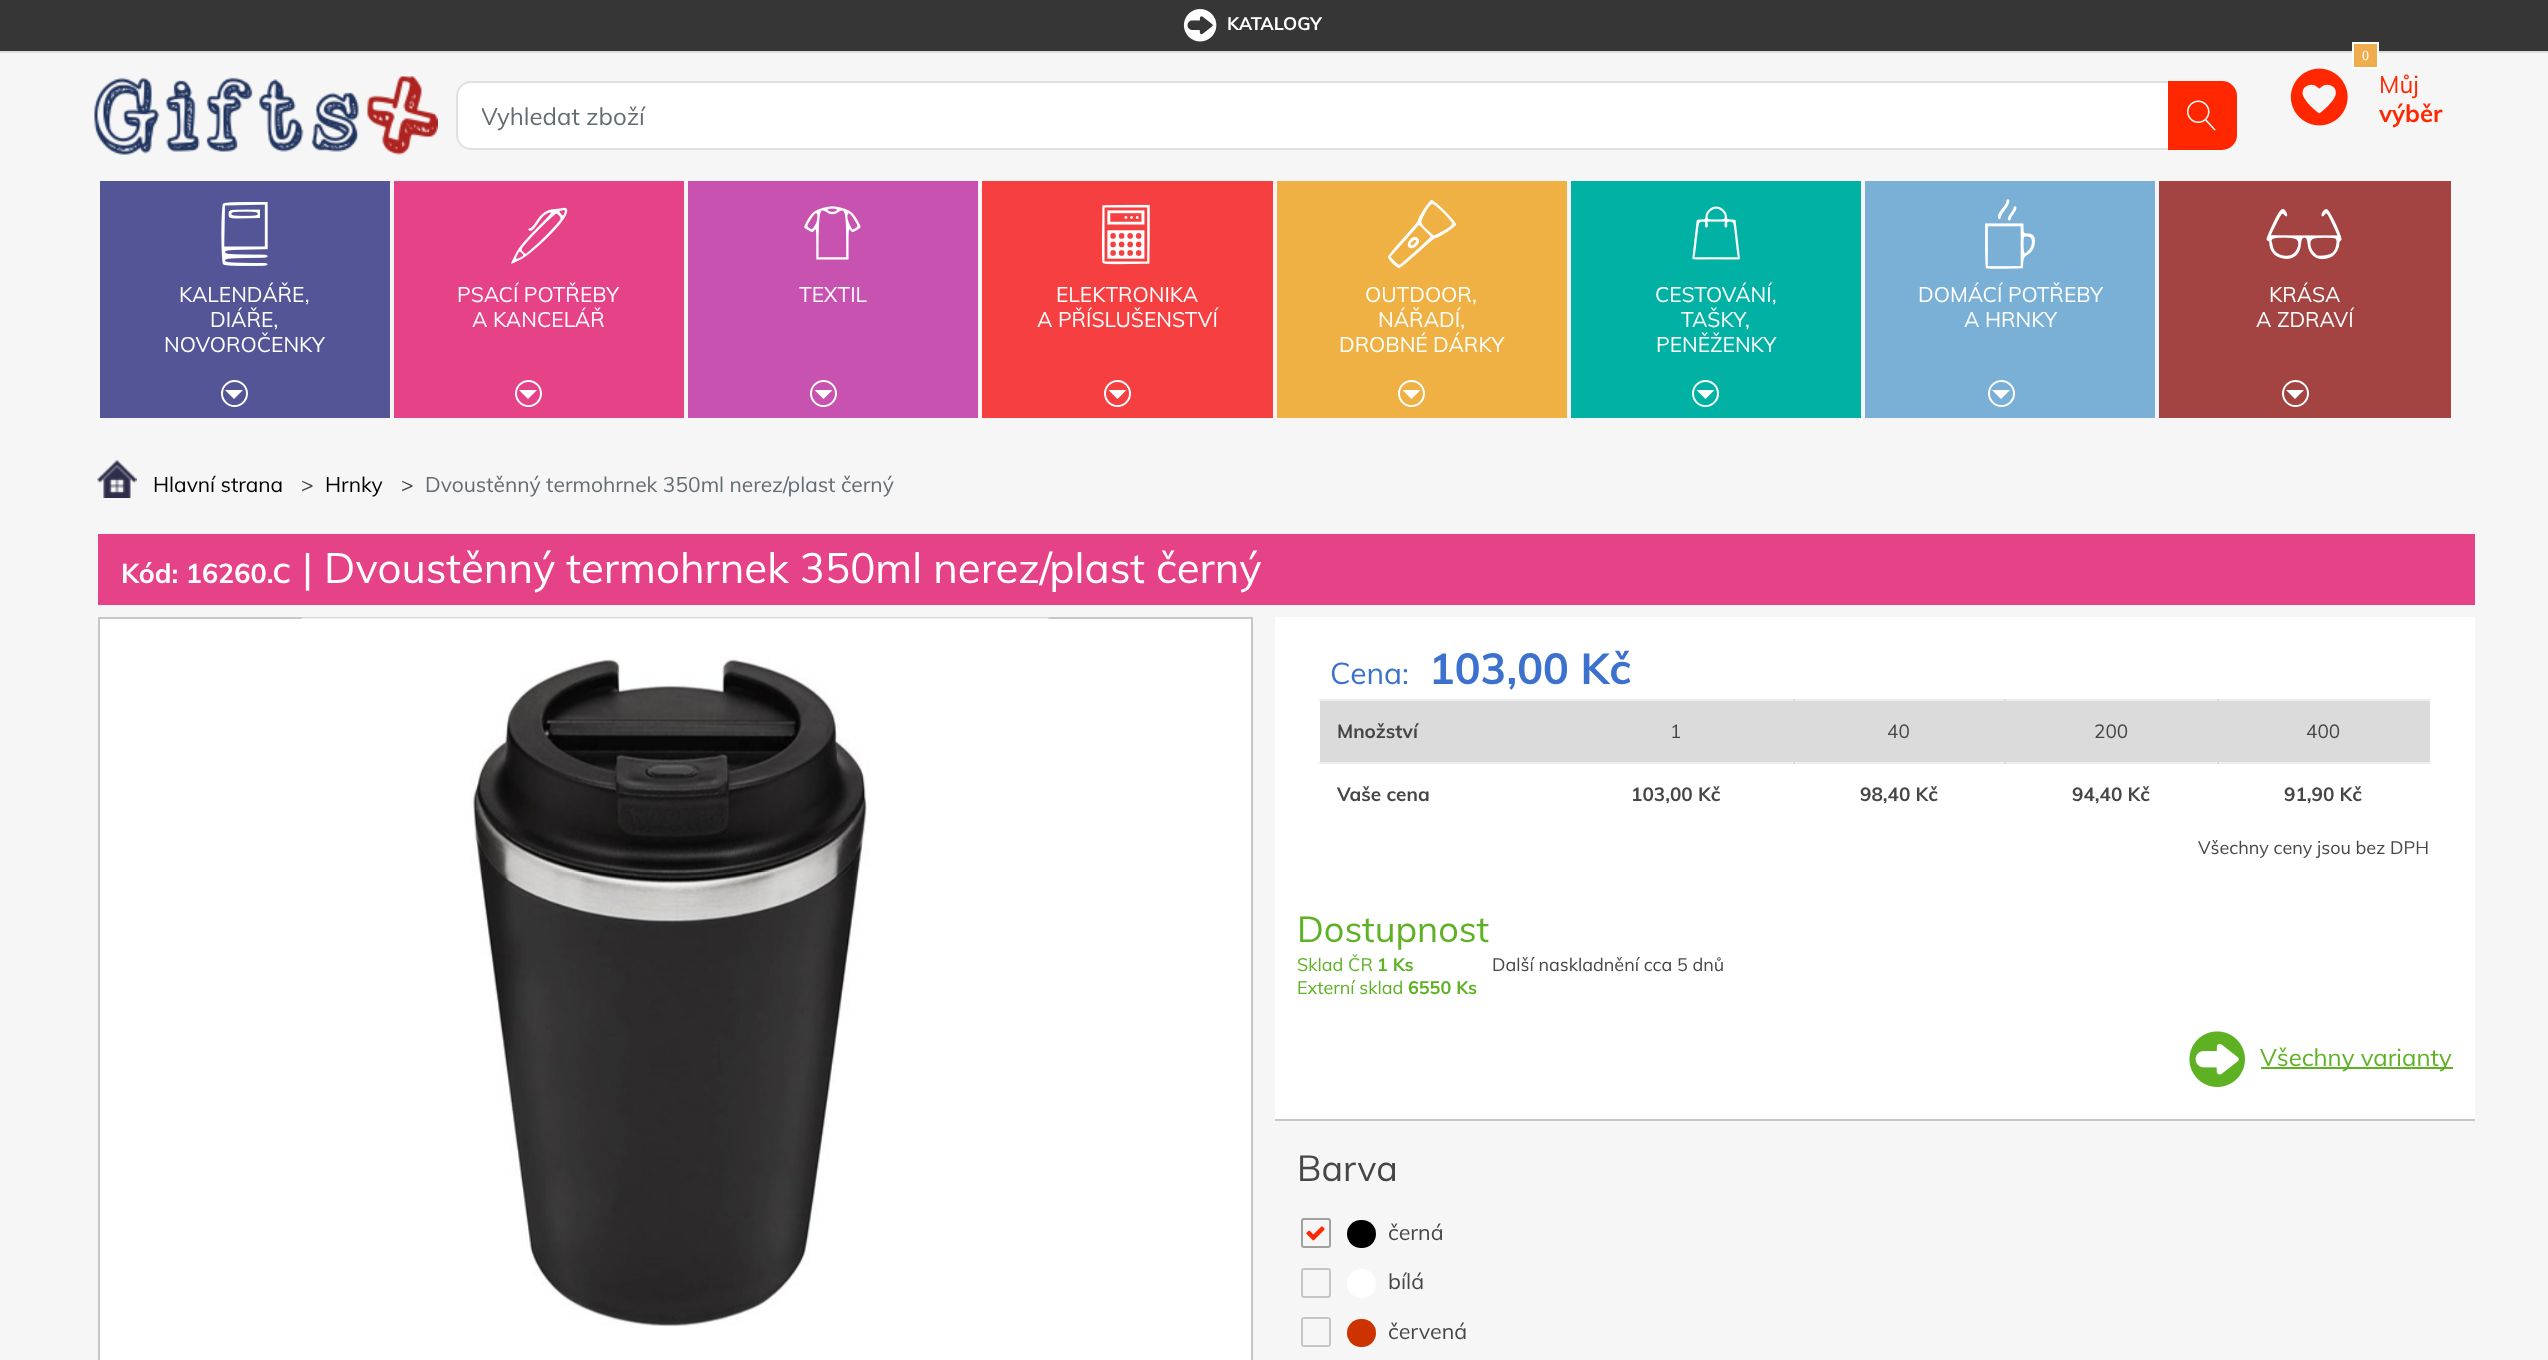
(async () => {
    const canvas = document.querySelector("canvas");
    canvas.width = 2548;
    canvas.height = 1360;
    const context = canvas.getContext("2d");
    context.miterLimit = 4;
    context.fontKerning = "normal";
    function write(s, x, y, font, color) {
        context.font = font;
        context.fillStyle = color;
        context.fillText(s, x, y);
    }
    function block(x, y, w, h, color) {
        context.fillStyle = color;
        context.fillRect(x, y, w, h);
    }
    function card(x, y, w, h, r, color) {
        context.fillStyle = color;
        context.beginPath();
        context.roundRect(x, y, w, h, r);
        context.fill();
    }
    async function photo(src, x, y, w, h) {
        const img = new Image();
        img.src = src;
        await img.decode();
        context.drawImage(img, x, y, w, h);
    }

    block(0, 0, 2548, 1360, "rgb(246, 246, 246)");
    block(0, 0, 2548, 51, "rgb(54, 54, 54)");
    block(0, 51, 2548, 2, "rgb(221, 221, 221)");
    await photo("media/1.png", 1183, 9, 34, 33);
    write("KATALOGY", 1227, 30, "bold 18px Muli", "rgb(255, 255, 255)");
    await photo("media/2.png", 94, 76, 344, 79);
    card(456, 81, 1781, 69, 15, "rgb(255, 255, 255)");
    context.beginPath();
    context.roundRect(457, 82, 1779, 67, 14);
    context.strokeStyle = "rgba(0, 0, 0, 0.12)";
    context.lineWidth = 2;
    context.stroke();
    context.save();
    context.beginPath();
    context.rect(482, 101, 1663, 30);
    context.clip();
    write("Vyhledat zboží", 481, 125, "24px Muli", "rgb(99, 108, 114)");
    context.restore();
    context.fillStyle = "rgb(255, 39, 0)";
    context.beginPath();
    context.roundRect(2169, 82, 67, 67, [0, 14, 14, 0]);
    context.fill();
    context.strokeStyle = "rgb(255, 39, 0)";
    context.stroke();
    await photo("media/3.png", 2187, 100, 29, 31);
    context.fillStyle = "rgb(240, 173, 78)";
    context.beginPath();
    context.rect(2353, 43, 25, 25);
    context.fill();
    context.strokeStyle = "rgb(255, 255, 255)";
    context.stroke();
    write("0", 2362, 60, "14px Liberation Serif", "rgb(255, 255, 255)");
    await photo("media/4.png", 2290, 68, 58, 58);
    write("Můj", 2379, 93, "24px Muli", "rgb(255, 39, 0)");
    write("výběr", 2379, 122, "bold 24px Muli", "rgb(255, 39, 0)");
    block(100, 181, 290, 237, "rgb(84, 85, 150)");
    await photo("media/5.png", 221, 202, 47, 64);
    write("KALENDÁŘE,", 179, 302, "21px Muli", "rgb(255, 255, 255)");
    write("DIÁŘE,", 210, 327, "21px Muli", "rgb(255, 255, 255)");
    write("NOVOROČENKY", 164, 352, "21px Muli", "rgb(255, 255, 255)");
    context.beginPath();
    context.arc(234.5, 393.5, 12.5, 0, Math.PI * 2);
    context.stroke();
    context.beginPath();
    context.moveTo(225, 390);
    context.lineTo(243, 390);
    context.lineTo(234, 399);
    context.closePath();
    context.fill();
    block(394, 181, 290, 237, "rgb(230, 66, 135)");
    await photo("media/6.png", 511, 207, 57, 57);
    write("PSACÍ POTŘEBY", 457, 302, "21px Muli", "rgb(255, 255, 255)");
    write("A KANCELÁŘ", 472, 327, "21px Muli", "rgb(255, 255, 255)");
    context.beginPath();
    context.arc(528.5, 393.5, 12.5, 0, Math.PI * 2);
    context.stroke();
    context.beginPath();
    context.moveTo(519, 390);
    context.lineTo(537, 390);
    context.lineTo(528, 399);
    context.closePath();
    context.fill();
    block(688, 181, 290, 237, "rgb(200, 82, 176)");
    await photo("media/7.png", 804, 206, 57, 54);
    write("TEXTIL", 799, 302, "21px Muli", "rgb(255, 255, 255)");
    context.beginPath();
    context.arc(823.5, 393.5, 12.5, 0, Math.PI * 2);
    context.stroke();
    context.beginPath();
    context.moveTo(814.5, 390);
    context.lineTo(832.5, 390);
    context.lineTo(823.5, 399);
    context.closePath();
    context.fill();
    block(982, 181, 291, 237, "rgb(246, 63, 65)");
    await photo("media/8.png", 1101, 204, 49, 61);
    write("ELEKTRONIKA", 1056, 302, "21px Muli", "rgb(255, 255, 255)");
    write("A PŘÍSLUŠENSTVÍ", 1037, 327, "21px Muli", "rgb(255, 255, 255)");
    context.beginPath();
    context.arc(1117.5, 393.5, 12.5, 0, Math.PI * 2);
    context.stroke();
    context.beginPath();
    context.moveTo(1108.5, 390);
    context.lineTo(1126.5, 390);
    context.lineTo(1117.5, 399);
    context.closePath();
    context.fill();
    block(1277, 181, 290, 237, "rgb(239, 177, 68)");
    await photo("media/9.png", 1388, 200, 68, 68);
    write("OUTDOOR,", 1365, 302, "21px Muli", "rgb(255, 255, 255)");
    write("NÁŘADÍ,", 1378, 327, "21px Muli", "rgb(255, 255, 255)");
    write("DROBNÉ DÁRKY", 1339, 352, "21px Muli", "rgb(255, 255, 255)");
    context.beginPath();
    context.arc(1411.5, 393.5, 12.5, 0, Math.PI * 2);
    context.stroke();
    context.beginPath();
    context.moveTo(1402.5, 390);
    context.lineTo(1420.5, 390);
    context.lineTo(1411.5, 399);
    context.closePath();
    context.fill();
    block(1571, 181, 290, 237, "rgb(1, 177, 164)");
    await photo("media/10.png", 1692, 206, 48, 54);
    write("CESTOVÁNÍ,", 1655, 302, "21px Muli", "rgb(255, 255, 255)");
    write("TAŠKY,", 1681, 327, "21px Muli", "rgb(255, 255, 255)");
    write("PENĚŽENKY", 1656, 352, "21px Muli", "rgb(255, 255, 255)");
    context.beginPath();
    context.arc(1705.5, 393.5, 12.5, 0, Math.PI * 2);
    context.stroke();
    context.beginPath();
    context.moveTo(1696.5, 390);
    context.lineTo(1714.5, 390);
    context.lineTo(1705.5, 399);
    context.closePath();
    context.fill();
    block(1865, 181, 290, 237, "rgb(122, 176, 214)");
    await photo("media/11.png", 1985, 199, 50, 70);
    write("DOMÁCÍ POTŘEBY", 1918, 302, "21px Muli", "rgb(255, 255, 255)");
    write("A HRNKY", 1964, 327, "21px Muli", "rgb(255, 255, 255)");
    context.beginPath();
    context.arc(2001.5, 393.5, 12.5, 0, Math.PI * 2);
    context.stroke();
    context.beginPath();
    context.moveTo(1992, 390);
    context.lineTo(2010, 390);
    context.lineTo(2001, 399);
    context.closePath();
    context.fill();
    block(2159, 181, 292, 237, "rgb(163, 68, 66)");
    await photo("media/12.png", 2266, 209, 76, 51);
    write("KRÁSA", 2269, 302, "21px Muli", "rgb(255, 255, 255)");
    write("A ZDRAVÍ", 2256, 327, "21px Muli", "rgb(255, 255, 255)");
    context.beginPath();
    context.arc(2295.5, 393.5, 12.5, 0, Math.PI * 2);
    context.stroke();
    context.beginPath();
    context.moveTo(2286, 390);
    context.lineTo(2304, 390);
    context.lineTo(2295, 399);
    context.closePath();
    context.fill();
    await photo("media/13.png", 97, 460, 40, 38);
    write("Hlavní strana", 153, 492, "21px Muli", "rgb(0, 0, 0)");
    write(">", 301, 492, "21px Muli", "rgb(70, 70, 70)");
    write("Hrnky", 325, 492, "21px Muli", "rgb(0, 0, 0)");
    write(">", 401, 492, "21px Muli", "rgb(70, 70, 70)");
    write("Dvoustěnný termohrnek 350ml nerez/plast černý", 425, 492, "21px Muli", "rgb(99, 108, 114)");
    block(98, 534, 2377, 71, "rgb(230, 66, 135)");
    write("Kód: 16260.C", 121, 583, "bold 27px Muli", "rgb(255, 255, 255)");
    write("| Dvoustěnný termohrnek 350ml nerez/plast černý", 302, 583, "42px Muli", "rgb(255, 255, 255)");
    context.beginPath();
    context.rect(99, 618, 1153, 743);
    context.fill();
    context.strokeStyle = "rgb(199, 199, 199)";
    context.stroke();
    await photo("media/14.png", 301, 617, 748, 710);
    block(1275, 617, 1200, 502, "rgb(255, 255, 255)");
    write("Cena:", 1330, 684, "30px Muli", "rgb(60, 113, 206)");
    write("103,00 Kč", 1429, 684, "bold 43px Muli", "rgb(60, 113, 206)");
    block(1320, 701, 1110, 61, "rgb(220, 219, 219)");
    write("Množství", 1337, 738, "bold 19px Muli", "rgb(70, 70, 70)");
    block(1319, 699, 1111, 2, "rgb(236, 238, 239)");
    block(1319, 762, 1111, 2, "rgb(236, 238, 239)");
    block(1793, 699, 2, 65, "rgb(220, 219, 219)");
    write("1", 1670, 738, "19px Muli", "rgb(70, 70, 70)");
    block(2004, 699, 2, 65, "rgb(220, 219, 219)");
    write("40", 1887, 738, "19px Muli", "rgb(70, 70, 70)");
    block(2217, 699, 2, 65, "rgb(220, 219, 219)");
    write("200", 2094, 738, "19px Muli", "rgb(70, 70, 70)");
    write("400", 2306, 738, "19px Muli", "rgb(70, 70, 70)");
    write("Vaše cena", 1337, 801, "bold 19px Muli", "rgb(70, 70, 70)");
    write("103,00 Kč", 1631, 801, "bold 19px Muli", "rgb(70, 70, 70)");
    write("98,40 Kč", 1860, 801, "bold 19px Muli", "rgb(70, 70, 70)");
    write("94,40 Kč", 2072, 801, "bold 19px Muli", "rgb(70, 70, 70)");
    write("91,90 Kč", 2284, 801, "bold 19px Muli", "rgb(70, 70, 70)");
    write("Všechny ceny jsou bez DPH", 2198, 854, "18px Muli", "rgb(70, 70, 70)");
    write("Dostupnost", 1297, 942, "36px Muli", "rgb(93, 177, 35)");
    write("Sklad ČR", 1297, 971, "18px Muli", "rgb(93, 177, 35)");
    write("1 Ks", 1377, 971, "bold 18px Muli", "rgb(93, 177, 35)");
    write("Externí sklad", 1297, 994, "18px Muli", "rgb(93, 177, 35)");
    write("6550 Ks", 1408, 994, "bold 18px Muli", "rgb(93, 177, 35)");
    write("Další naskladnění cca 5 dnů", 1492, 971, "18px Muli", "rgb(70, 70, 70)");
    await photo("media/15.png", 2189, 1031, 56, 56);
    block(2261, 1067, 192, 2, "rgb(93, 177, 35)");
    write("Všechny varianty", 2260, 1066, "24px Muli", "rgb(93, 177, 35)");
    block(1275, 1119, 1200, 2, "rgb(199, 199, 199)");
    write("Barva", 1297, 1181, "36px Muli", "rgb(70, 70, 70)");
    context.beginPath();
    context.roundRect(1302, 1219, 28, 28, 2);
    context.strokeStyle = "rgb(160, 160, 160)";
    context.stroke();
    await photo("media/16.png", 1306, 1226, 19, 15);
    card(1347, 1220, 29, 28, 14, "rgb(0, 0, 0)");
    write("černá", 1388, 1240, "21.5px Muli", "rgb(70, 70, 70)");
    context.beginPath();
    context.roundRect(1302, 1269, 28, 28, 2);
    context.strokeStyle = "rgb(197, 197, 197)";
    context.stroke();
    context.fillStyle = "rgb(255, 255, 255)";
    context.beginPath();
    context.arc(1361.5, 1283.5, 14.5, 0, Math.PI * 2);
    context.fill();
    write("bílá", 1388, 1289, "21.5px Muli", "rgb(70, 70, 70)");
    context.beginPath();
    context.roundRect(1302, 1318, 28, 28, 2);
    context.stroke();
    card(1347, 1319, 29, 28, 14, "rgb(204, 51, 0)");
    write("červená", 1388, 1339, "21.5px Muli", "rgb(70, 70, 70)");
})();
